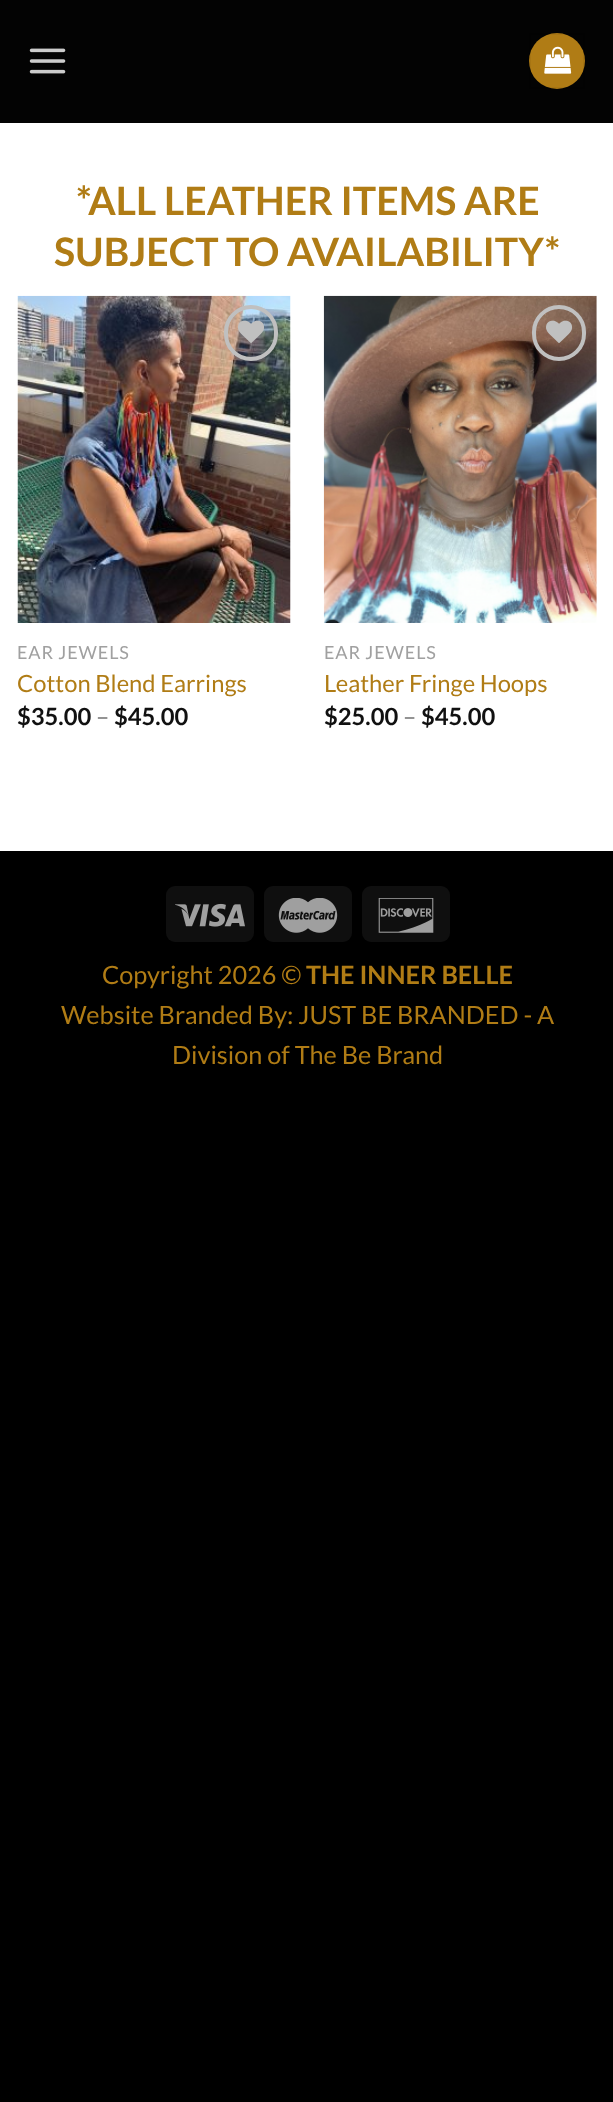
(async () => {
    const canvas = document.querySelector("canvas");
    canvas.width = 613;
    canvas.height = 2102;
    const context = canvas.getContext("2d");
    context.miterLimit = 4;
    context.fontKerning = "normal";
    function write(s, x, y, font, color) {
        context.font = font;
        context.fillStyle = color;
        context.fillText(s, x, y);
    }
    function block(x, y, w, h, color) {
        context.fillStyle = color;
        context.fillRect(x, y, w, h);
    }
    function card(x, y, w, h, r, color) {
        context.fillStyle = color;
        context.beginPath();
        context.roundRect(x, y, w, h, r);
        context.fill();
    }
    async function photo(src, x, y, w, h) {
        const img = new Image();
        img.src = src;
        await img.decode();
        context.drawImage(img, x, y, w, h);
    }

    block(0, 0, 613, 2102, "rgb(0, 0, 0)");
    block(0, 123, 613, 728, "rgb(255, 255, 255)");
    block(0, 0, 613, 123, "rgb(3, 3, 3)");
    await photo("media/1.png", 29, 48, 37, 26);
    context.fillStyle = "rgb(176, 124, 21)";
    context.beginPath();
    context.arc(557, 61, 28, 0, Math.PI * 2);
    context.fill();
    context.strokeStyle = "rgba(0, 0, 0, 0.05)";
    context.lineWidth = 2;
    context.strokeRect(530, 34, 54, 54);
    await photo("media/2.png", 544, 46, 28, 28);
    write("*ALL LEATHER ITEMS ARE", 76, 215, "bold 39.25px Lato", "rgb(176, 124, 21)");
    write("SUBJECT TO AVAILABILITY*", 54, 266, "bold 39.25px Lato", "rgb(176, 124, 21)");
    await photo("media/3.png", 17, 295, 274, 328);
    context.beginPath();
    context.roundRect(226, 307, 50, 52, 25);
    context.strokeStyle = "rgb(192, 192, 192)";
    context.lineWidth = 4;
    context.stroke();
    await photo("media/4.png", 238, 320, 27, 23);
    context.letterSpacing = "0.9px";
    write("EAR JEWELS", 17, 659, "18px Lato", "rgb(160, 160, 160)");
    context.letterSpacing = "0px";
    write("Cotton Blend Earrings", 17, 692, "23.75px Lato", "rgb(176, 124, 21)");
    write("$35.00", 17, 725, "bold 23.75px Lato", "rgb(17, 17, 17)");
    write("–", 96, 725, "23.75px Lato", "rgb(119, 119, 119)");
    write("$45.00", 114, 725, "bold 23.75px Lato", "rgb(17, 17, 17)");
    await photo("media/5.png", 323, 295, 274, 328);
    context.beginPath();
    context.roundRect(534, 307, 50, 52, 25);
    context.stroke();
    await photo("media/6.png", 546, 320, 27, 23);
    context.letterSpacing = "0.9px";
    write("EAR JEWELS", 324, 659, "18px Lato", "rgb(160, 160, 160)");
    context.letterSpacing = "0px";
    write("Leather Fringe Hoops", 324, 692, "23.75px Lato", "rgb(176, 124, 21)");
    write("$25.00", 324, 725, "bold 23.75px Lato", "rgb(17, 17, 17)");
    write("–", 403, 725, "23.75px Lato", "rgb(119, 119, 119)");
    write("$45.00", 421, 725, "bold 23.75px Lato", "rgb(17, 17, 17)");
    card(166, 886, 88, 56, 9, "rgb(15, 15, 15)");
    await photo("media/7.png", 175, 903, 70, 24);
    card(264, 886, 88, 56, 9, "rgb(15, 15, 15)");
    await photo("media/8.png", 278, 898, 60, 35);
    card(362, 886, 88, 56, 9, "rgb(15, 15, 15)");
    await photo("media/9.png", 378, 898, 56, 35);
    write("Copyright 2026 ©", 102, 984, "25.25px Lato", "rgb(176, 124, 21)");
    write("THE INNER BELLE", 306, 984, "bold 25.25px Lato", "rgb(176, 124, 21)");
    write("Website Branded By: JUST BE BRANDED - A", 61, 1024, "25.25px Lato", "rgb(176, 124, 21)");
    write("Division of The Be Brand", 172, 1064, "25.25px Lato", "rgb(176, 124, 21)");
})();
